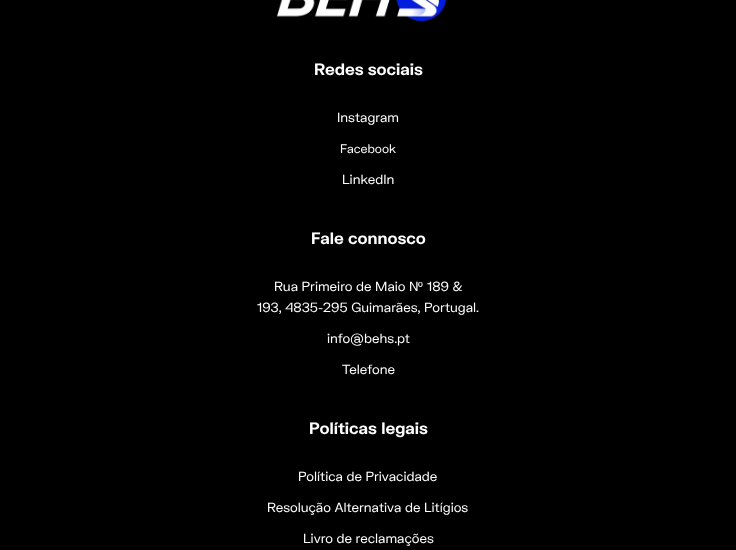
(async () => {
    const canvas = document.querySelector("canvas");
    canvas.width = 736;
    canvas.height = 550;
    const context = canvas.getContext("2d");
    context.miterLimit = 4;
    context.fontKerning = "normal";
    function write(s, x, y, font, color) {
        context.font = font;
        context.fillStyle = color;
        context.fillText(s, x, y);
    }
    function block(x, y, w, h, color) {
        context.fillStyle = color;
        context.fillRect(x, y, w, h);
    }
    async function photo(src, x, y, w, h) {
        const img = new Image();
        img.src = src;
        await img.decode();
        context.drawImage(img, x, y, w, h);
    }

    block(0, 0, 736, 550, "rgb(0, 0, 0)");
    await photo("media/1.png", 277, 0, 170, 21);
    write("Redes sociais", 314, 75, "bold 16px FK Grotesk", "rgb(255, 255, 255)");
    write("Instagram", 337, 122, "13px FK Grotesk", "rgb(255, 255, 255)");
    write("Facebook", 340, 153, "12px FK Grotesk", "rgb(255, 255, 255)");
    write("LinkedIn", 342, 184, "13px FK Grotesk", "rgb(255, 255, 255)");
    write("Fale connosco", 311, 244, "bold 16px FK Grotesk", "rgb(255, 255, 255)");
    write("Rua Primeiro de Maio N", 274, 291, "13px FK Grotesk", "rgb(255, 255, 255)");
    write("º", 418, 291, "13px Liberation Sans", "rgb(255, 255, 255)");
    write("189 &", 427, 291, "13px FK Grotesk", "rgb(255, 255, 255)");
    write("193, 4835-295 Guimarães, Portugal.", 257, 312, "13px FK Grotesk", "rgb(255, 255, 255)");
    write("info@behs.pt", 327, 343, "13px FK Grotesk", "rgb(255, 255, 255)");
    write("Telefone", 342, 374, "13px FK Grotesk", "rgb(255, 255, 255)");
    write("Políticas legais", 309, 434, "bold 16px FK Grotesk", "rgb(255, 255, 255)");
    write("Política de Privacidade", 298, 481, "13px FK Grotesk", "rgb(255, 255, 255)");
    write("Resolução Alternativa de Litígios", 267, 512, "13px FK Grotesk", "rgb(255, 255, 255)");
    write("Livro de reclamações", 303, 543, "13px FK Grotesk", "rgb(255, 255, 255)");
})();
